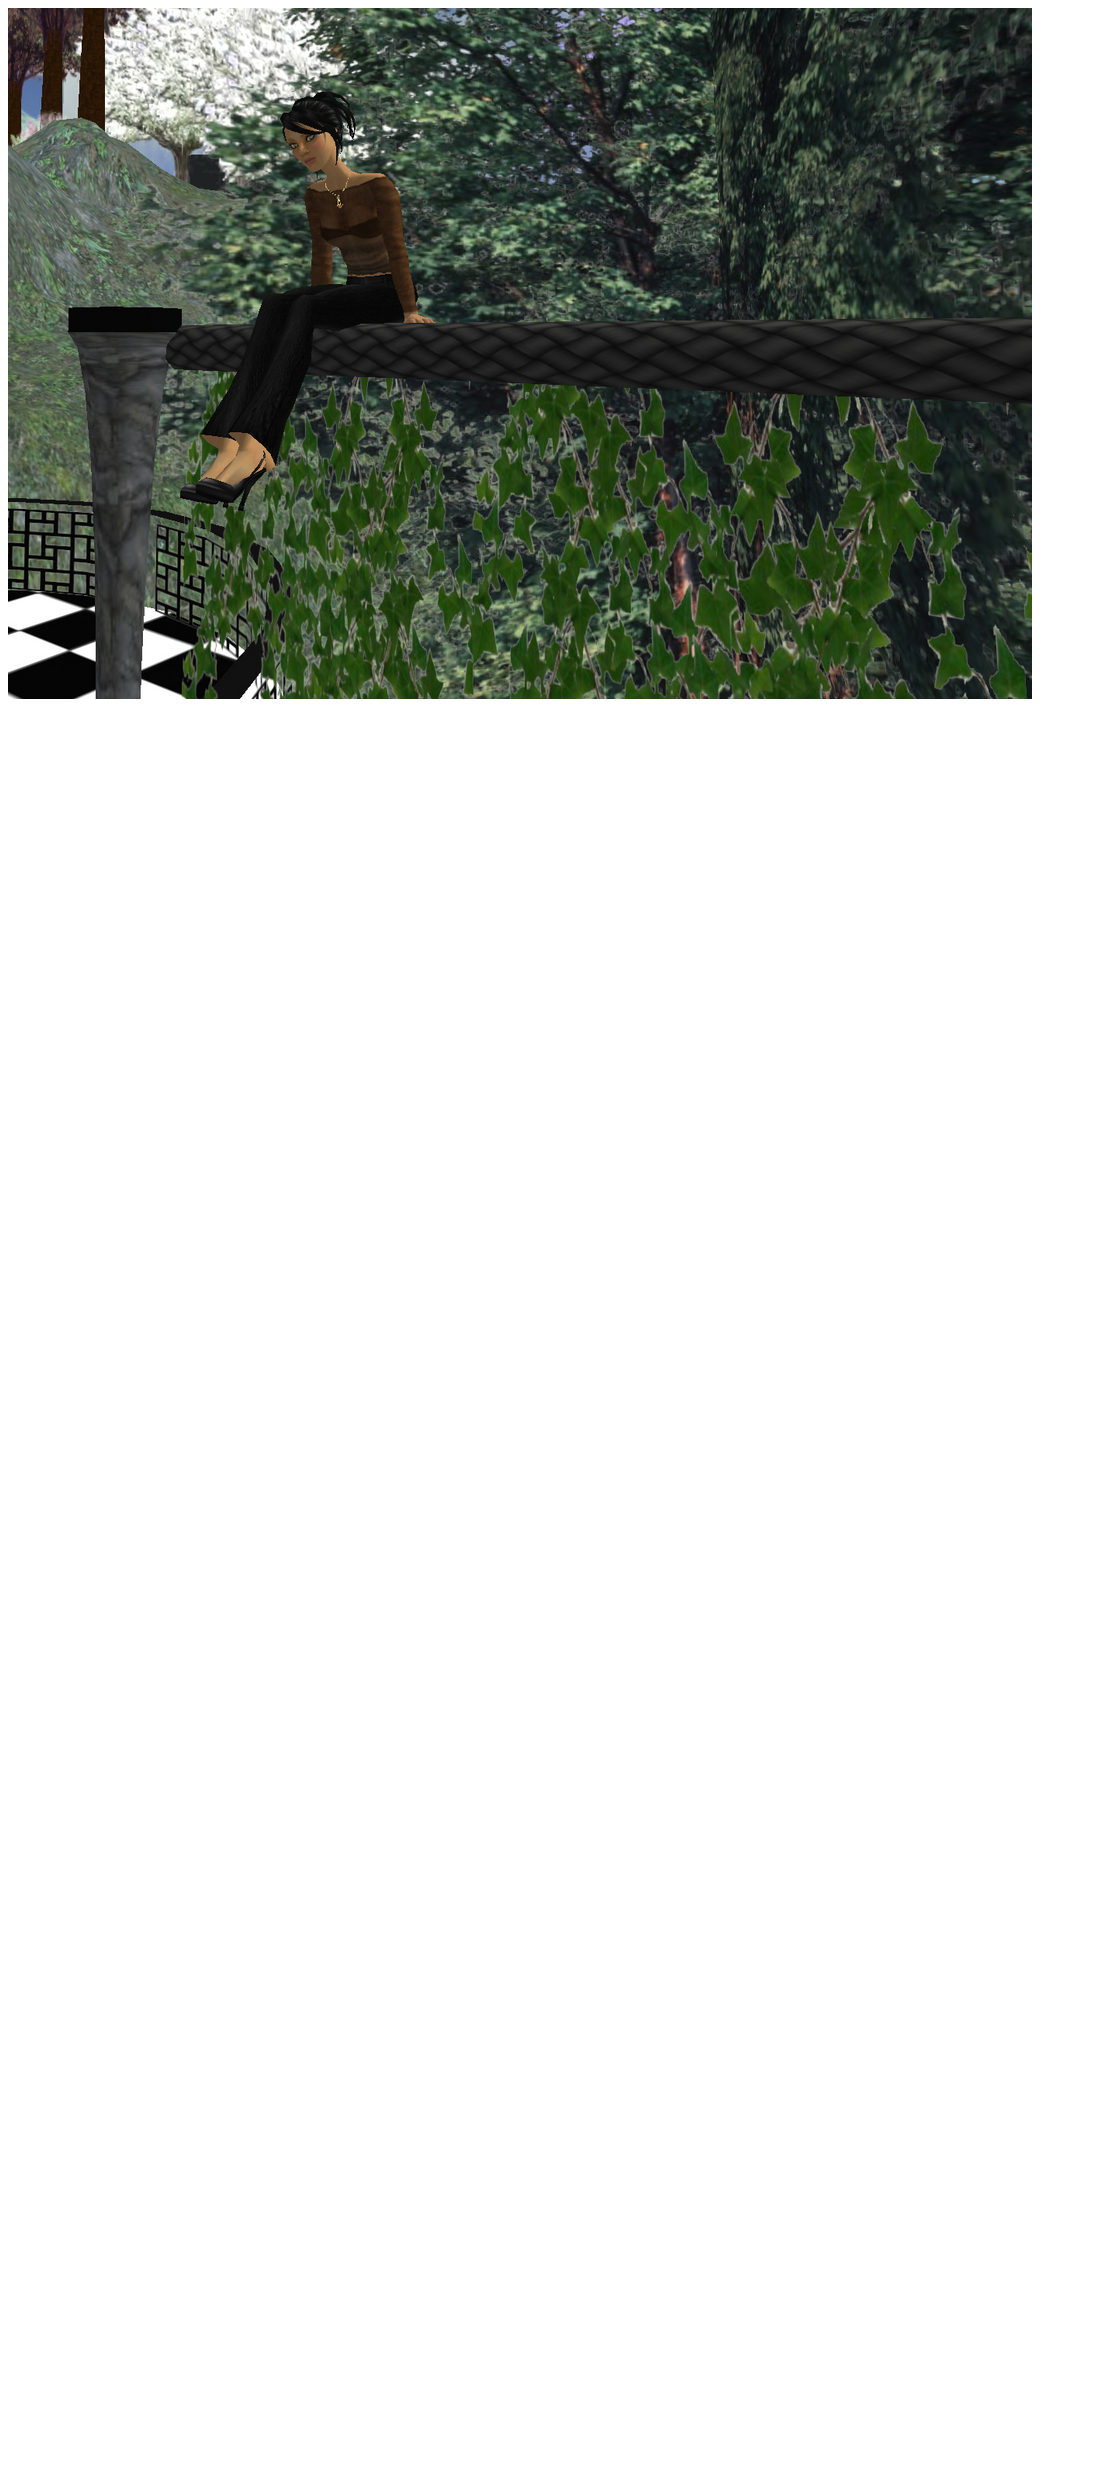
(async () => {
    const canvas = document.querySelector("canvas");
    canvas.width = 1103;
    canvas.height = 2491;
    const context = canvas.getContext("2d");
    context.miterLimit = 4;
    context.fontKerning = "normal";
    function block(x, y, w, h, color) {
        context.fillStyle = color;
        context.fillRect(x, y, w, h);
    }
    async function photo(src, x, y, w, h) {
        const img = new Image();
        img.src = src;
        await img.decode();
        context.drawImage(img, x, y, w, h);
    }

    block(0, 0, 1103, 2491, "rgb(255, 255, 255)");
    await photo("media/1.png", 8, 8, 1024, 691);
})();
